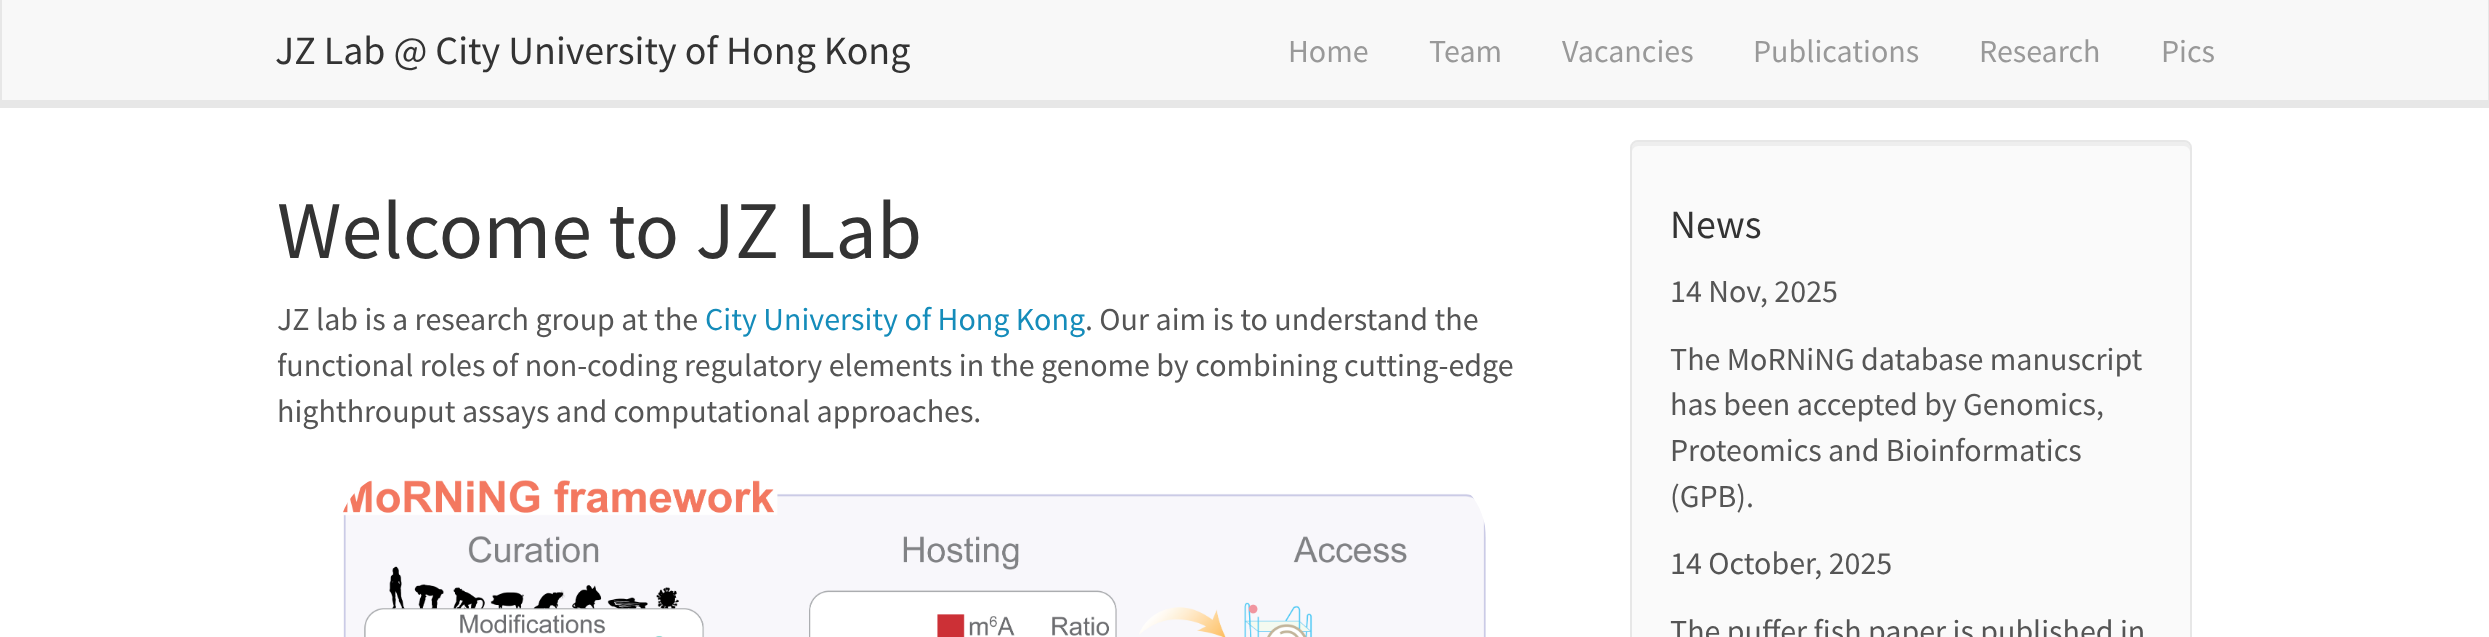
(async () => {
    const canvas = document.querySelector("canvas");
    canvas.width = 2489;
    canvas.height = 637;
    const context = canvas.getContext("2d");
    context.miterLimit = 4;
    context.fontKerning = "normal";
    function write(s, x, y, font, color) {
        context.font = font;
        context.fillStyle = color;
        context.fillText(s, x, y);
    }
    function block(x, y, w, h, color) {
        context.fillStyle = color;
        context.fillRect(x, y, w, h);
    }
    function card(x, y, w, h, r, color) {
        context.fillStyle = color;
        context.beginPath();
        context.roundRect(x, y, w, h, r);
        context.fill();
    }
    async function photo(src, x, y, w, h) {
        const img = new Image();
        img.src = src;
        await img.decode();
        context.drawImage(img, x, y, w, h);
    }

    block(0, 0, 2489, 637, "rgb(255, 255, 255)");
    block(2, 0, 2486, 100, "rgb(248, 248, 248)");
    block(2488, 0, 1, 108, "rgb(231, 231, 231)");
    block(0, 100, 2489, 8, "rgb(231, 231, 231)");
    block(0, 0, 2, 108, "rgb(231, 231, 231)");
    write("JZ Lab @ City University of Hong Kong", 275, 64, "40px Source Sans Pro", "rgb(51, 51, 51)");
    write("Home", 1288, 62, "32px Source Sans Pro", "rgb(153, 153, 153)");
    write("Team", 1429, 62, "32px Source Sans Pro", "rgb(153, 153, 153)");
    write("Vacancies", 1562, 62, "32px Source Sans Pro", "rgb(153, 153, 153)");
    write("Publications", 1753, 62, "32px Source Sans Pro", "rgb(153, 153, 153)");
    write("Research", 1979, 62, "32px Source Sans Pro", "rgb(153, 153, 153)");
    write("Pics", 2161, 62, "32px Source Sans Pro", "rgb(153, 153, 153)");
    write("Welcome to JZ Lab", 277, 258, "82px Source Sans Pro", "rgb(51, 51, 51)");
    write("JZ lab is a research group at the", 277, 330, "32px Source Sans Pro", "rgb(85, 85, 85)");
    write("City University of Hong Kong", 705, 330, "32px Source Sans Pro", "rgb(21, 140, 186)");
    write(". Our aim is to understand the", 1085, 330, "32px Source Sans Pro", "rgb(85, 85, 85)");
    write("functional roles of non-coding regulatory elements in the genome by combining cutting-edge", 277, 376, "32px Source Sans Pro", "rgb(85, 85, 85)");
    write("highthrouput assays and computational approaches.", 277, 422, "32px Source Sans Pro", "rgb(85, 85, 85)");
    await photo("media/1.png", 343, 480, 1143, 157);
    card(1630, 140, 562, 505, 8, "rgb(250, 250, 250)");
    context.fillStyle = "rgb(238, 238, 238)";
    context.beginPath();
    context.moveTo(1638, 146);
    context.lineTo(2184, 146);
    context.bezierCurveTo(2187, 146, 2190, 149, 2190, 152);
    context.lineTo(2190, 148);
    context.bezierCurveTo(2190, 145, 2187, 142, 2184, 142);
    context.lineTo(1638, 142);
    context.bezierCurveTo(1635, 142, 1632, 145, 1632, 148);
    context.lineTo(1632, 152);
    context.bezierCurveTo(1632, 149, 1635, 146, 1638, 146);
    context.closePath();
    context.fill();
    context.beginPath();
    context.roundRect(1631, 141, 560, 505, 7);
    context.strokeStyle = "rgb(231, 231, 231)";
    context.lineWidth = 2;
    context.stroke();
    write("News", 1670, 238, "40px Source Sans Pro", "rgb(51, 51, 51)");
    write("14 Nov, 2025", 1670, 302, "32px Source Sans Pro", "rgb(85, 85, 85)");
    write("The MoRNiNG database manuscript", 1670, 370, "32px Source Sans Pro", "rgb(85, 85, 85)");
    write("has been accepted by Genomics,", 1670, 415, "32px Source Sans Pro", "rgb(85, 85, 85)");
    write("Proteomics and Bioinformatics", 1670, 461, "32px Source Sans Pro", "rgb(85, 85, 85)");
    write("(GPB).", 1670, 507, "32px Source Sans Pro", "rgb(85, 85, 85)");
    write("14 October, 2025", 1670, 574, "32px Source Sans Pro", "rgb(85, 85, 85)");
    write("The puffer fish paper is published in", 1670, 642, "32px Source Sans Pro", "rgb(85, 85, 85)");
})();
